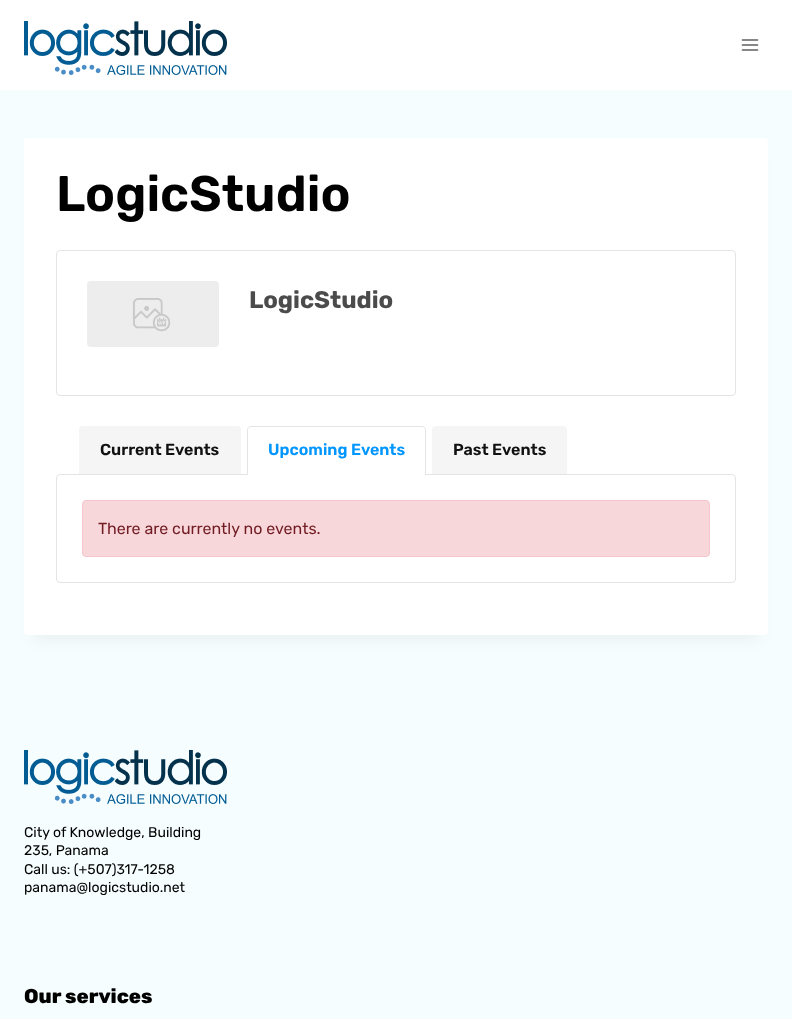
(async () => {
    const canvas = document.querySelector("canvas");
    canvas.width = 792;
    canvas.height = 1019;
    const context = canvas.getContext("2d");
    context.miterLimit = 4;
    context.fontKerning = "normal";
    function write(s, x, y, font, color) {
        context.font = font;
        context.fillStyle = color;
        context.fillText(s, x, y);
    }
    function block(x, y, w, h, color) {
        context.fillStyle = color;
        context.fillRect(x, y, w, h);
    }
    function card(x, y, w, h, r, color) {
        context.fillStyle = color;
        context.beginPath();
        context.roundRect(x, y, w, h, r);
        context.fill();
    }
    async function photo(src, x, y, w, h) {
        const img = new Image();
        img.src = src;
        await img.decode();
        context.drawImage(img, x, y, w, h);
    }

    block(0, 0, 792, 1019, "rgb(245, 253, 255)");
    block(0, 0, 792, 90, "rgb(255, 255, 255)");
    await photo("media/1.png", 24, 21, 203, 54);
    await photo("media/2.png", 741, 39, 18, 12);
    context.fillStyle = "rgba(0, 0, 0, 0.05)";
    context.filter = "blur(7.5px)";
    context.beginPath();
    context.rect(34, 163, 724, 477);
    context.fill();
    context.filter = "none";
    card(24, 138, 744, 497, 4, "rgb(255, 255, 255)");
    write("LogicStudio", 56, 211, "600 50px Rubik", "rgb(0, 0, 0)");
    context.beginPath();
    context.roundRect(56.5, 250.5, 679, 145, 3.5);
    context.strokeStyle = "rgb(228, 228, 228)";
    context.stroke();
    await photo("media/3.png", 87, 281, 132, 66);
    write("LogicStudio", 249, 308, "bold 24px Rubik", "rgb(75, 75, 75)");
    context.fillStyle = "rgb(245, 245, 245)";
    context.beginPath();
    context.roundRect(79, 426, 162, 48, [4, 4, 0, 0]);
    context.fill();
    write("Current Events", 100, 455, "600 16px Rubik", "rgb(17, 17, 17)");
    context.beginPath();
    context.roundRect(56.5, 474.5, 679, 108, 3.5);
    context.stroke();
    context.fillStyle = "rgb(255, 255, 255)";
    context.beginPath();
    context.roundRect(247, 426, 179, 49, [4, 4, 0, 0]);
    context.fill();
    context.fillStyle = "rgb(228, 228, 228)";
    context.beginPath();
    context.moveTo(251, 426);
    context.lineTo(422, 426);
    context.bezierCurveTo(424, 426, 426, 428, 426, 430);
    context.lineTo(426, 475);
    context.lineTo(247, 475);
    context.lineTo(247, 430);
    context.bezierCurveTo(247, 428, 249, 426, 251, 426);
    context.closePath();
    context.moveTo(251, 427);
    context.lineTo(422, 427);
    context.bezierCurveTo(424, 427, 425, 428, 425, 430);
    context.lineTo(425, 475);
    context.lineTo(248, 475);
    context.lineTo(248, 430);
    context.bezierCurveTo(248, 428, 249, 427, 251, 427);
    context.closePath();
    context.fill("evenodd");
    write("Upcoming Events", 268, 455, "600 16px Rubik", "rgb(0, 150, 255)");
    context.fillStyle = "rgb(245, 245, 245)";
    context.beginPath();
    context.roundRect(432, 426, 135, 48, [4, 4, 0, 0]);
    context.fill();
    write("Past Events", 453, 455, "600 16px Rubik", "rgb(17, 17, 17)");
    context.fillStyle = "rgb(248, 215, 218)";
    context.beginPath();
    context.roundRect(82.5, 500.5, 627, 56, 3.5);
    context.fill();
    context.strokeStyle = "rgb(245, 198, 203)";
    context.stroke();
    write("There are currently no events.", 98, 534, "16px Rubik", "rgb(114, 28, 36)");
    await photo("media/4.png", 24, 750, 203, 54);
    write("City of Knowledge, Building", 24, 837, "14px Rubik", "rgb(0, 0, 0)");
    write("235, Panama", 24, 855, "14px Rubik", "rgb(0, 0, 0)");
    write("Call us: (+507)317-1258", 24, 874, "14px Rubik", "rgb(0, 0, 0)");
    write("panama@logicstudio.net", 24, 892, "14px Rubik", "rgb(0, 0, 0)");
    write("Our services", 24, 1003, "800 20px Rubik", "rgb(0, 0, 0)");
})();
